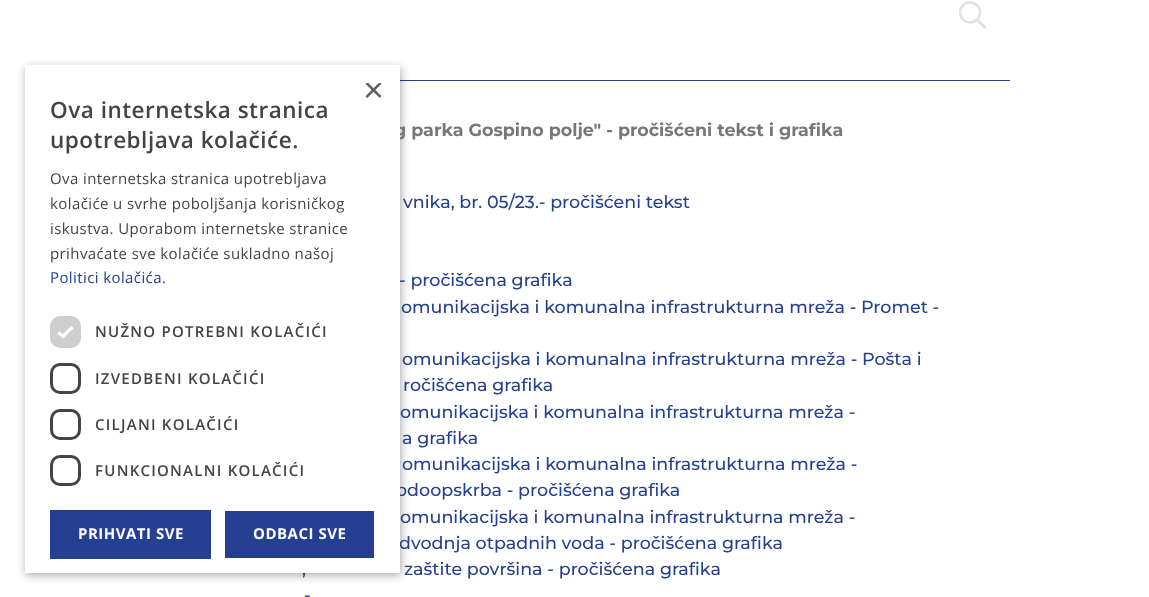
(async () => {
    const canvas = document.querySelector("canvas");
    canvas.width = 1149;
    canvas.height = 597;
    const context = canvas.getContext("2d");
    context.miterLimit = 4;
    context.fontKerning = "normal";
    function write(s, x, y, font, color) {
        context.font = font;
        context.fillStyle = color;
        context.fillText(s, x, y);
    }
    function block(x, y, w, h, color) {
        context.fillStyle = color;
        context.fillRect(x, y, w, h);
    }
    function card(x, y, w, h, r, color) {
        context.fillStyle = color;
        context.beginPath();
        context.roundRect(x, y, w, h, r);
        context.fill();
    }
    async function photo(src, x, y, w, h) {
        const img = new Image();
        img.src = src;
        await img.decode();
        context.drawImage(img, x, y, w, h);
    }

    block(0, 0, 1149, 597, "rgb(255, 255, 255)");
    block(400, 80, 610, 1, "rgb(37, 64, 143)");
    context.fillStyle = "rgba(0, 0, 0, 0.35)";
    context.filter = "blur(5px)";
    context.beginPath();
    context.rect(26, 68, 375, 507);
    context.fill();
    context.filter = "none";
    write("g parka Gospino polje\" - pročišćeni tekst i grafika", 394, 136, "bold 17.5px Montserrat", "rgb(119, 119, 119)");
    write("odoopskrba - pročišćena grafika", 396, 496, "500 17.5px Montserrat", "rgb(37, 64, 143)");
    write("dvodnja otpadnih voda - pročišćena grafika", 399, 549, "500 17.5px Montserrat", "rgb(37, 64, 143)");
    write(",", 302, 575, "500 17.5px Montserrat", "rgb(37, 64, 143)");
    block(25, 65, 375, 508, "rgb(255, 255, 255)");
    context.save();
    context.beginPath();
    context.rect(363, 83, 18, 18);
    context.clip();
    write("×", 363, 102, "36px Liberation Sans", "rgb(96, 96, 96)");
    context.restore();
    context.letterSpacing = "0.5px";
    write("Ova internetska stranica", 50, 118, "600 22.5px Open Sans", "rgb(68, 68, 68)");
    write("upotrebljava kolačiće.", 50, 148, "600 22.5px Open Sans", "rgb(68, 68, 68)");
    context.letterSpacing = "0.4px";
    write("Ova internetska stranica upotrebljava", 50, 184, "15px Open Sans", "rgb(68, 68, 68)");
    write("kolačiće u svrhe poboljšanja korisničkog", 50, 209, "15px Open Sans", "rgb(68, 68, 68)");
    write("iskustva. Uporabom internetske stranice", 50, 234, "15px Open Sans", "rgb(68, 68, 68)");
    write("prihvaćate sve kolačiće sukladno našoj", 50, 259, "15px Open Sans", "rgb(68, 68, 68)");
    write("Politici kolačića.", 50, 283, "15px Open Sans", "rgb(37, 64, 143)");
    card(50, 316, 31, 32, 10, "rgb(206, 206, 206)");
    context.beginPath();
    context.moveTo(58.5, 332.5);
    context.lineTo(63, 336.5);
    context.lineTo(72.5, 327);
    context.strokeStyle = "rgb(255, 255, 255)";
    context.lineWidth = 3.3;
    context.stroke();
    context.letterSpacing = "1.25px";
    write("NUŽNO POTREBNI KOLAČIĆI", 95, 337, "600 15px Open Sans", "rgb(68, 68, 68)");
    context.beginPath();
    context.roundRect(51.5, 364.5, 28, 28, 8.5);
    context.strokeStyle = "rgb(68, 68, 68)";
    context.lineWidth = 3;
    context.stroke();
    write("IZVEDBENI KOLAČIĆI", 95, 384, "600 15px Open Sans", "rgb(68, 68, 68)");
    context.beginPath();
    context.roundRect(51.5, 410.5, 28, 28, 8.5);
    context.stroke();
    write("CILJANI KOLAČIĆI", 95, 430, "600 15px Open Sans", "rgb(68, 68, 68)");
    context.beginPath();
    context.roundRect(51.5, 456.5, 28, 28, 8.5);
    context.stroke();
    write("FUNKCIONALNI KOLAČIĆI", 95, 476, "600 15px Open Sans", "rgb(68, 68, 68)");
    block(50, 510, 161, 49, "rgb(37, 64, 147)");
    context.letterSpacing = "0.5px";
    write("PRIHVATI SVE", 78, 539, "bold 15px Open Sans", "rgb(255, 255, 255)");
    block(225, 511, 149, 47, "rgb(37, 64, 147)");
    write("ODBACI SVE", 253, 539, "bold 15px Open Sans", "rgb(255, 255, 255)");
    await photo("media/1.png", 959, 1, 27, 28);
    context.letterSpacing = "0px";
    write("vnika, br. 05/23.- pročišćeni tekst", 403, 208, "500 17.5px Montserrat", "rgb(37, 64, 143)");
    write("- pročišćena grafika", 399, 286, "500 17.5px Montserrat", "rgb(37, 64, 143)");
    write("omunikacijska i komunalna infrastrukturna mreža - Promet -", 401, 313, "500 17.5px Montserrat", "rgb(37, 64, 143)");
    write("omunikacijska i komunalna infrastrukturna mreža - Pošta i", 402, 365, "500 17.5px Montserrat", "rgb(37, 64, 143)");
    write("ročišćena grafika", 403, 391, "500 17.5px Montserrat", "rgb(37, 64, 143)");
    write("omunikacijska i komunalna infrastrukturna mreža -", 400, 418, "500 17.5px Montserrat", "rgb(37, 64, 143)");
    write("a grafika", 402, 444, "500 17.5px Montserrat", "rgb(37, 64, 143)");
    write("omunikacijska i komunalna infrastrukturna mreža -", 402, 470, "500 17.5px Montserrat", "rgb(37, 64, 143)");
    write("omunikacijska i komunalna infrastrukturna mreža -", 400, 523, "500 17.5px Montserrat", "rgb(37, 64, 143)");
    write("zaštite površina - pročišćena grafika", 404, 575, "500 17.5px Montserrat", "rgb(37, 64, 143)");
    write("-", 304, 601, "500 17.5px Montserrat", "rgb(37, 64, 143)");
})();
